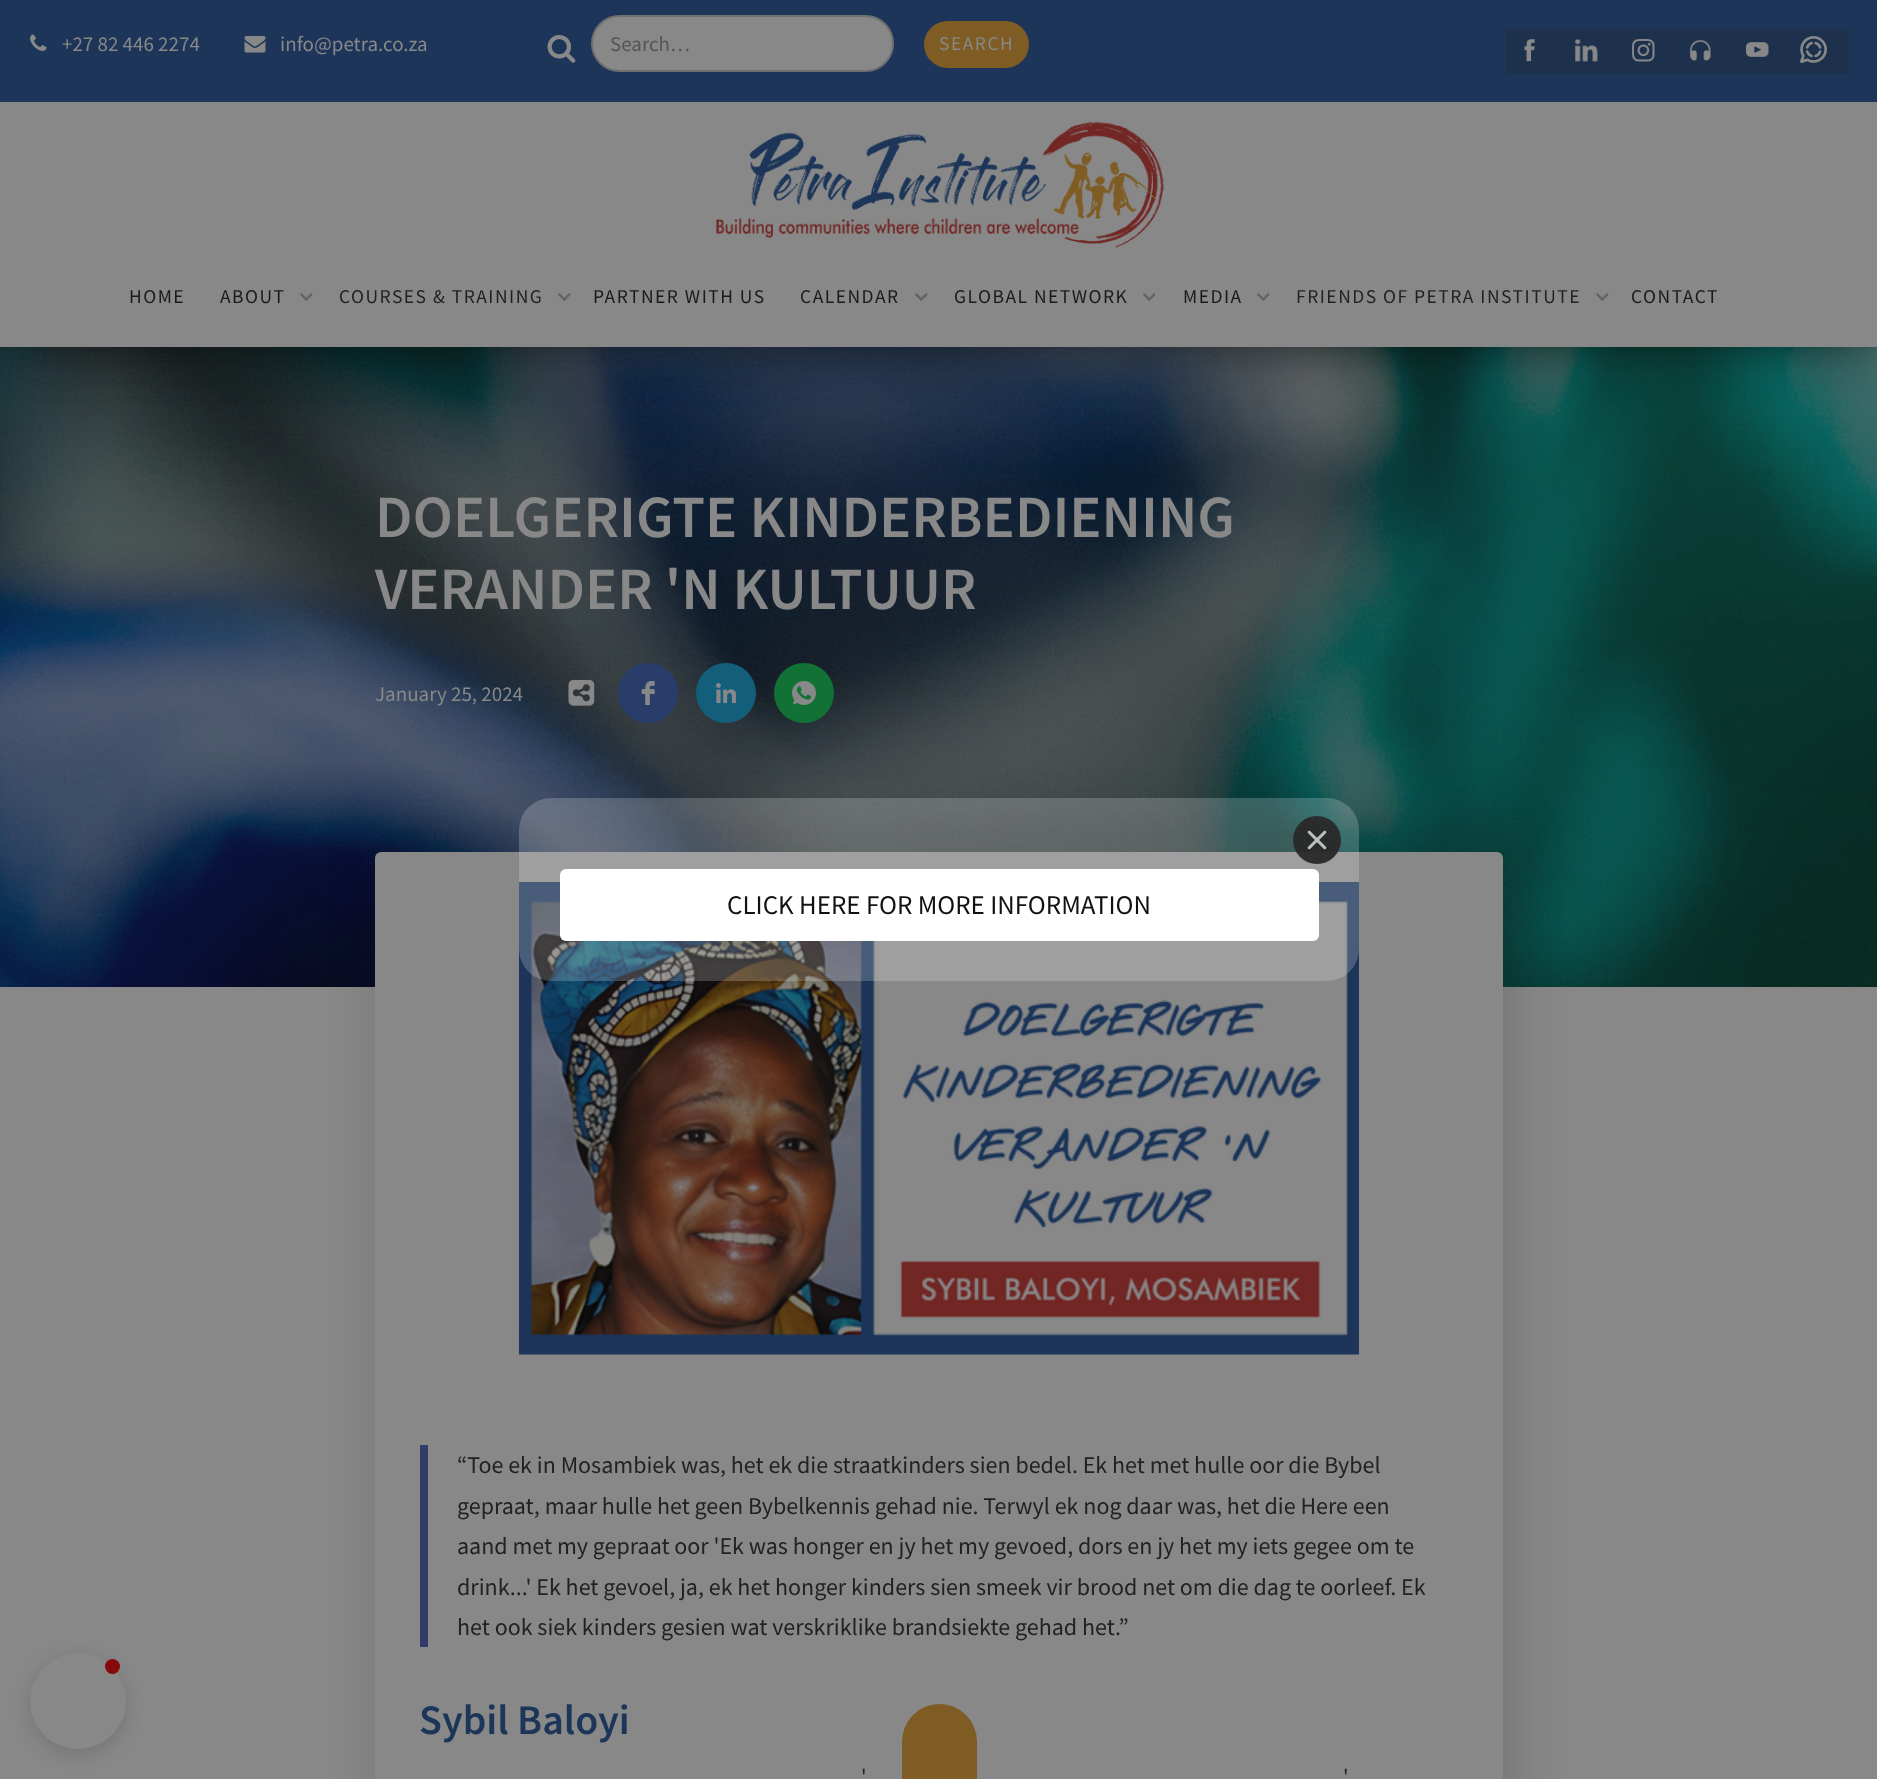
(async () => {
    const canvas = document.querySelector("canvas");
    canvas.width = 1877;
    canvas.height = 1779;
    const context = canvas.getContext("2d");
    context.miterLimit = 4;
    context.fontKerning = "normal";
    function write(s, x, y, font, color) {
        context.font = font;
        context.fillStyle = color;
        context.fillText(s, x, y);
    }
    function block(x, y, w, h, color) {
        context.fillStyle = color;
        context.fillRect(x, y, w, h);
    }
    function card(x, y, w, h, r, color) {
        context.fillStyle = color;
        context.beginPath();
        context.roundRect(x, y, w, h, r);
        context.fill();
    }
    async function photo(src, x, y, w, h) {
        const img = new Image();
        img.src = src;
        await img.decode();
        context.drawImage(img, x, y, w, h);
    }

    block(0, 0, 1877, 1779, "rgb(255, 255, 255)");
    await photo("media/12.png", 0, 347, 1877, 640);
    context.fillStyle = "rgba(9, 9, 9, 0.6)";
    context.filter = "blur(25px)";
    context.beginPath();
    context.rect(0, 0, 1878, 347);
    context.fill();
    context.filter = "none";
    block(0, 0, 1877, 102, "rgb(28, 53, 89)");
    await photo("media/1.png", 30, 34, 17, 17);
    write("+27 82 446 2274", 62, 51, "21px Source Sans Pro", "rgb(136, 136, 136)");
    await photo("media/2.png", 244, 36, 22, 17);
    write("info@petra.co.za", 280, 51, "21px Source Sans Pro", "rgb(136, 136, 136)");
    await photo("media/3.png", 547, 34, 29, 29);
    context.beginPath();
    context.roundRect(592, 16, 301, 55, 27.5);
    context.fill();
    context.strokeStyle = "rgb(111, 111, 111)";
    context.lineWidth = 2;
    context.stroke();
    write("Search…", 610, 51, "21px Source Sans Pro", "rgb(85, 85, 85)");
    card(924, 21, 105, 47, 23.5, "rgb(126, 92, 36)");
    context.letterSpacing = "1.5px";
    write("SEARCH", 939, 50, "19.5px Source Sans Pro", "rgb(136, 136, 136)");
    block(1506, 29, 342, 45, "rgb(29, 49, 77)");
    await photo("media/4.png", 1524, 39, 11, 23);
    await photo("media/5.png", 1575, 39, 23, 23);
    await photo("media/6.png", 1632, 39, 23, 23);
    await photo("media/7.png", 1690, 40, 21, 21);
    await photo("media/8.png", 1746, 42, 23, 15);
    await photo("media/9.png", 1800, 36, 27, 27);
    block(0, 102, 1877, 245, "rgb(136, 136, 136)");
    await photo("media/10.png", 716, 121, 448, 127);
    write("HOME", 129, 303, "19.5px Source Sans Pro", "rgb(26, 26, 26)");
    write("ABOUT", 220, 303, "19.5px Source Sans Pro", "rgb(26, 26, 26)");
    await photo("media/11.png", 300, 293, 13, 9);
    write("COURSES & TRAINING", 339, 303, "19.5px Source Sans Pro", "rgb(34, 34, 34)");
    await photo("media/11.png", 558, 293, 13, 9);
    write("PARTNER WITH US", 593, 303, "19.5px Source Sans Pro", "rgb(26, 26, 26)");
    write("CALENDAR", 800, 303, "19.5px Source Sans Pro", "rgb(26, 26, 26)");
    await photo("media/11.png", 915, 293, 13, 9);
    write("GLOBAL NETWORK", 954, 303, "19.5px Source Sans Pro", "rgb(26, 26, 26)");
    await photo("media/11.png", 1143, 293, 13, 9);
    write("MEDIA", 1183, 303, "19.5px Source Sans Pro", "rgb(26, 26, 26)");
    await photo("media/11.png", 1257, 293, 13, 9);
    write("FRIENDS OF PETRA INSTITUTE", 1296, 303, "19.5px Source Sans Pro", "rgb(34, 34, 34)");
    await photo("media/11.png", 1596, 293, 13, 9);
    write("CONTACT", 1631, 303, "19.5px Source Sans Pro", "rgb(26, 26, 26)");
    context.letterSpacing = "0px";
    write("DOELGERIGTE KINDERBEDIENING", 375, 537, "600 60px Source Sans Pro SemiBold", "rgb(136, 136, 136)");
    write("VERANDER 'N KULTUUR", 375, 609, "600 60px Source Sans Pro SemiBold", "rgb(136, 136, 136)");
    write("January 25, 2024", 375, 701, "21px Source Sans Pro", "rgb(136, 136, 136)");
    await photo("media/13.png", 568, 679, 27, 27);
    context.fillStyle = "rgb(40, 61, 105)";
    context.beginPath();
    context.arc(648, 693, 30, 0, Math.PI * 2);
    context.fill();
    await photo("media/14.png", 641, 681, 14, 24);
    context.fillStyle = "rgb(19, 95, 123)";
    context.beginPath();
    context.arc(726, 693, 30, 0, Math.PI * 2);
    context.fill();
    await photo("media/15.png", 716, 683, 20, 20);
    context.fillStyle = "rgb(18, 114, 54)";
    context.beginPath();
    context.arc(804, 693, 30, 0, Math.PI * 2);
    context.fill();
    await photo("media/16.png", 792, 681, 24, 24);
    block(0, 987, 1877, 792, "rgb(136, 136, 136)");
    context.fillStyle = "rgba(9, 9, 9, 0.17)";
    context.filter = "blur(25px)";
    context.beginPath();
    context.roundRect(380, 821, 1131, 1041, 8);
    context.fill();
    context.filter = "none";
    card(375, 852, 1128, 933, 6, "rgb(136, 136, 136)");
    await photo("media/18.png", 519, 882, 840, 473);
    card(519, 798, 840, 183, 32, "rgba(255, 255, 255, 0.2)");
    context.fillStyle = "rgba(41, 41, 41, 0.95)";
    context.beginPath();
    context.arc(1317, 840, 24, 0, Math.PI * 2);
    context.fill();
    await photo("media/17.png", 1307, 830, 20, 20);
    card(560, 869, 759, 72, 6, "rgb(255, 255, 255)");
    write("CLICK HERE FOR MORE INFORMATION", 727, 914, "27px Source Sans Pro", "rgb(17, 17, 17)");
    context.fillStyle = "rgba(9, 9, 9, 0.15)";
    context.filter = "blur(9px)";
    context.beginPath();
    context.roundRect(30, 1658, 96, 96, 48);
    context.fill();
    context.filter = "none";
    context.fillStyle = "rgb(136, 136, 136)";
    context.beginPath();
    context.arc(78, 1701, 48, 0, Math.PI * 2);
    context.fill();
    context.fillStyle = "rgb(136, 9, 9)";
    context.beginPath();
    context.arc(112.5, 1666.5, 7.5, 0, Math.PI * 2);
    context.fill();
    block(420, 1445, 8, 202, "rgb(48, 59, 104)");
    write("“Toe ek in Mosambiek was, het ek die straatkinders sien bedel. Ek het met hulle oor die Bybel", 457, 1473, "24px Source Sans Pro", "rgb(34, 34, 34)");
    write("gepraat, maar hulle het geen Bybelkennis gehad nie. Terwyl ek nog daar was, het die Here een", 457, 1514, "24px Source Sans Pro", "rgb(34, 34, 34)");
    write("aand met my gepraat oor 'Ek was honger en jy het my gevoed, dors en jy het my iets gegee om te", 457, 1554, "24px Source Sans Pro", "rgb(34, 34, 34)");
    write("drink...' Ek het gevoel, ja, ek het honger kinders sien smeek vir brood net om die dag te oorleef. Ek", 457, 1595, "24px Source Sans Pro", "rgb(34, 34, 34)");
    write("het ook siek kinders gesien wat verskriklike brandsiekte gehad het.”", 457, 1635, "24px Source Sans Pro", "rgb(34, 34, 34)");
    write("Sybil Baloyi", 419, 1734, "600 42px Source Sans Pro SemiBold", "rgb(28, 53, 89)");
    write("'", 861, 1784, "22px Source Sans Pro", "rgb(34, 34, 34)");
    write("'", 1343, 1784, "22px Source Sans Pro", "rgb(34, 34, 34)");
    context.fillStyle = "rgb(126, 92, 36)";
    context.beginPath();
    context.roundRect(902, 1704, 75, 75, [37.5, 37.5, 0, 0]);
    context.fill();
})();
